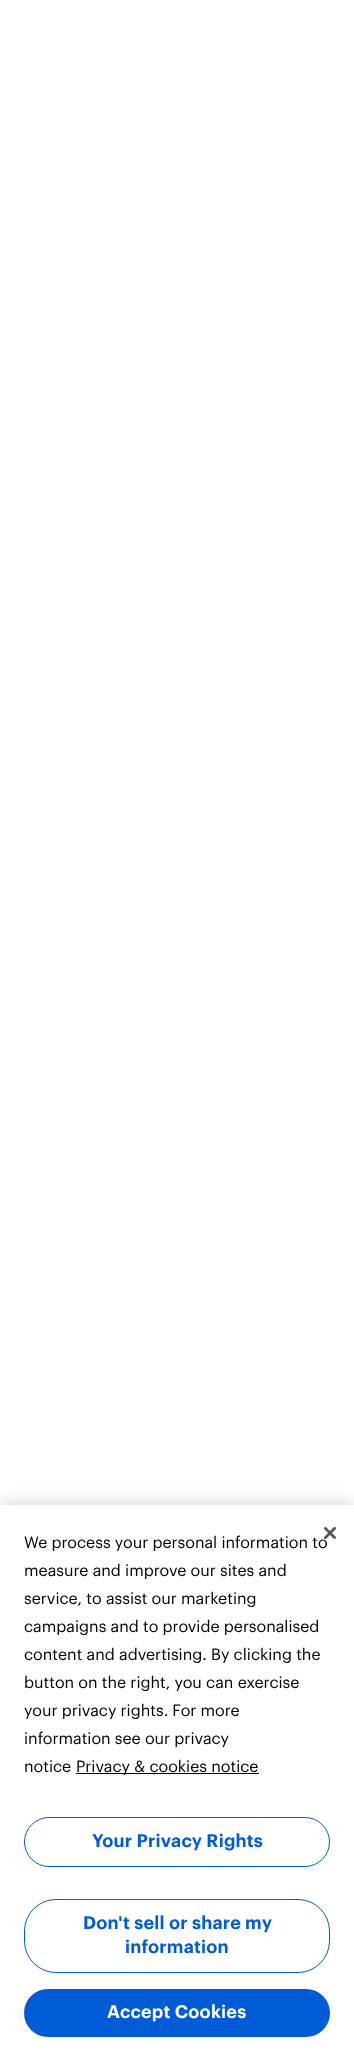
(async () => {
    const canvas = document.querySelector("canvas");
    canvas.width = 354;
    canvas.height = 2061;
    const context = canvas.getContext("2d");
    context.miterLimit = 4;
    context.fontKerning = "normal";
    function write(s, x, y, font, color) {
        context.font = font;
        context.fillStyle = color;
        context.fillText(s, x, y);
    }
    function block(x, y, w, h, color) {
        context.fillStyle = color;
        context.fillRect(x, y, w, h);
    }
    function card(x, y, w, h, r, color) {
        context.fillStyle = color;
        context.beginPath();
        context.roundRect(x, y, w, h, r);
        context.fill();
    }
    async function photo(src, x, y, w, h) {
        const img = new Image();
        img.src = src;
        await img.decode();
        context.drawImage(img, x, y, w, h);
    }

    block(0, 0, 354, 2061, "rgb(255, 255, 255)");
    context.fillStyle = "rgba(0, 0, 0, 0.2)";
    context.filter = "blur(9px)";
    context.beginPath();
    context.rect(0, 1505, 354, 556);
    context.fill();
    context.filter = "none";
    block(0, 1505, 354, 556, "rgb(255, 255, 255)");
    write("We process your personal information to", 24, 1548, "16px Graphik", "rgb(0, 0, 0)");
    await photo("media/1.png", 324, 1527, 12, 12);
    write("measure and improve our sites and", 24, 1576, "16px Graphik", "rgb(0, 0, 0)");
    write("service, to assist our marketing", 24, 1604, "16px Graphik", "rgb(0, 0, 0)");
    write("campaigns and to provide personalised", 24, 1632, "16px Graphik", "rgb(0, 0, 0)");
    write("content and advertising. By clicking the", 24, 1660, "16px Graphik", "rgb(0, 0, 0)");
    write("button on the right, you can exercise", 24, 1688, "16px Graphik", "rgb(0, 0, 0)");
    write("your privacy rights. For more", 24, 1716, "16px Graphik", "rgb(0, 0, 0)");
    write("information see our privacy", 24, 1744, "16px Graphik", "rgb(0, 0, 0)");
    write("notice", 24, 1772, "16px Graphik", "rgb(0, 0, 0)");
    block(76, 1773, 183, 1, "rgb(0, 0, 0)");
    write("Privacy & cookies notice", 76, 1772, "16px Graphik", "rgb(0, 0, 0)");
    context.beginPath();
    context.roundRect(24.5, 1817.5, 305, 49, 24.5);
    context.strokeStyle = "rgb(0, 91, 215)";
    context.stroke();
    context.letterSpacing = "0.2px";
    write("Your Privacy Rights", 92, 1847, "600 18px Graphik", "rgb(0, 91, 215)");
    context.beginPath();
    context.roundRect(24.5, 1899.5, 305, 73, 31.5);
    context.stroke();
    write("Don't sell or share my", 83, 1929, "600 18px Graphik", "rgb(0, 91, 215)");
    write("information", 125, 1953, "600 18px Graphik", "rgb(0, 91, 215)");
    card(24, 1989, 306, 48, 24, "rgb(0, 91, 215)");
    write("Accept Cookies", 107, 2018, "600 18px Graphik", "rgb(255, 255, 255)");
})();
